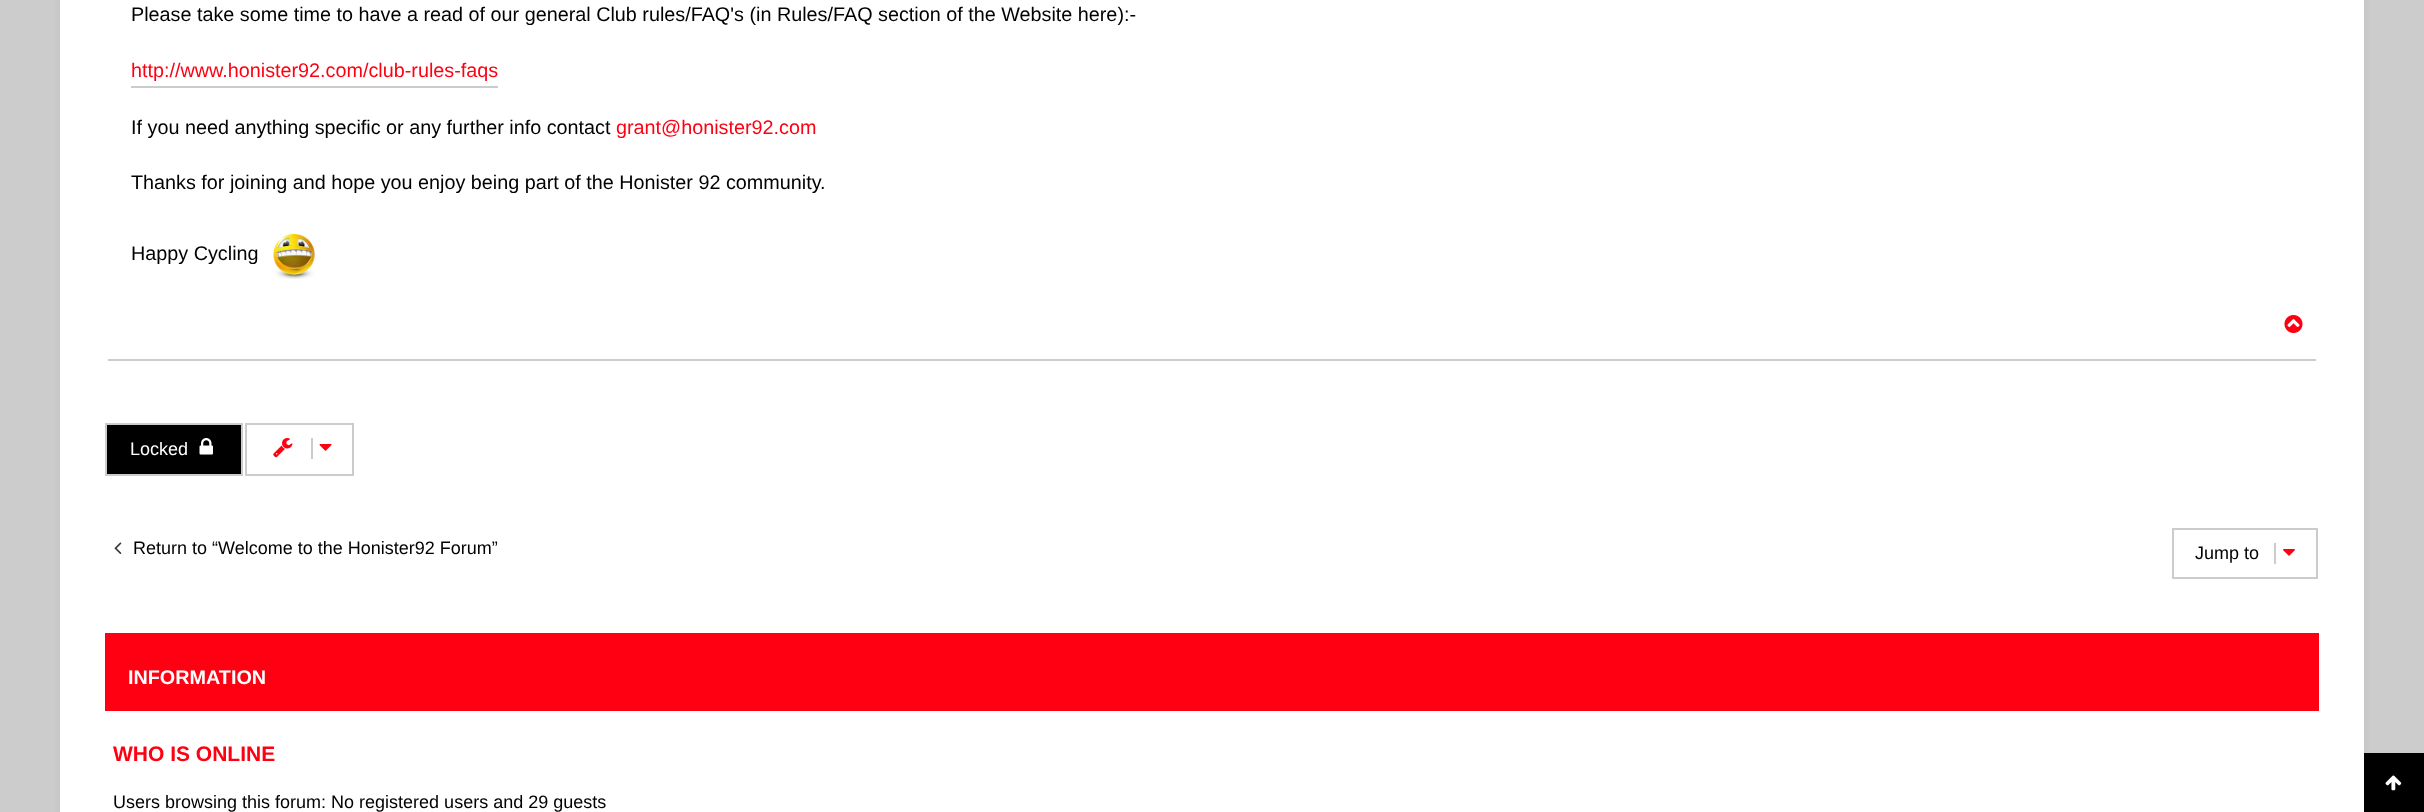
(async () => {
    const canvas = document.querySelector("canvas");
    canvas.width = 2424;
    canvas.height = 812;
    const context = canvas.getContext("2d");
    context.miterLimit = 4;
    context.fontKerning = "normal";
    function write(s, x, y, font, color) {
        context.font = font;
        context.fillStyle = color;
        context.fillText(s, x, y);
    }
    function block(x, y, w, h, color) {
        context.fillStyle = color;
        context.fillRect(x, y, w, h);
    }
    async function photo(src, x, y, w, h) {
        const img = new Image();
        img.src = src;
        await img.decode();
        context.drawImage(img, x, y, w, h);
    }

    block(0, 0, 2424, 812, "rgb(204, 204, 204)");
    context.fillStyle = "rgba(0, 0, 0, 0.05)";
    context.filter = "blur(4px)";
    context.beginPath();
    context.rect(60, -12, 2304, 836);
    context.fill();
    context.filter = "none";
    block(60, 0, 2304, 812, "rgb(255, 255, 255)");
    block(108, 359, 2208, 2, "rgb(204, 204, 204)");
    write("Please take some time to have a read of our general Club rules/FAQ's (in Rules/FAQ section of the Website here):-", 131, 21, "19.8px Liberation Sans", "rgb(0, 0, 0)");
    block(131, 86, 367, 2, "rgb(204, 204, 204)");
    write("http://www.honister92.com/club-rules-faqs", 131, 77, "19.8px Liberation Sans", "rgb(255, 0, 18)");
    write("If you need anything specific or any further info contact", 131, 134, "19.8px Liberation Sans", "rgb(0, 0, 0)");
    write("grant@honister92.com", 616, 134, "19.8px Liberation Sans", "rgb(255, 0, 18)");
    write("Thanks for joining and hope you enjoy being part of the Honister 92 community.", 131, 189, "19.8px Liberation Sans", "rgb(0, 0, 0)");
    write("Happy Cycling", 131, 260, "19.8px Liberation Sans", "rgb(0, 0, 0)");
    await photo("media/1.png", 273, 233, 42, 46);
    await photo("media/2.png", 2284, 315, 19, 18);
    context.beginPath();
    context.rect(106, 424, 136, 51);
    context.fill();
    context.strokeStyle = "rgb(204, 204, 204)";
    context.lineWidth = 2;
    context.stroke();
    write("Locked", 130, 455, "18px Liberation Sans", "rgb(255, 255, 255)");
    await photo("media/3.png", 199, 438, 14, 17);
    context.strokeRect(246, 424, 107, 51);
    await photo("media/4.png", 273, 438, 20, 20);
    block(311, 438, 2, 21, "rgb(204, 204, 204)");
    await photo("media/5.png", 319, 444, 13, 7);
    await photo("media/6.png", 114, 542, 8, 12);
    write("Return to “Welcome to the Honister92 Forum”", 133, 554, "18px Liberation Sans", "rgb(0, 0, 0)");
    context.strokeRect(2173, 529, 144, 49);
    write("Jump to", 2195, 559, "18px Liberation Sans", "rgb(0, 0, 0)");
    block(2274, 543, 2, 21, "rgb(204, 204, 204)");
    await photo("media/7.png", 2283, 549, 12, 7);
    block(105, 633, 2214, 78, "rgb(255, 0, 18)");
    write("INFORMATION", 128, 684, "bold 19.8px Liberation Sans", "rgb(255, 255, 255)");
    write("WHO IS ONLINE", 113, 761, "bold 21px Liberation Sans", "rgb(255, 0, 18)");
    write("Users browsing this forum: No registered users and 29 guests", 113, 808, "18px Liberation Sans", "rgb(0, 0, 0)");
    block(2364, 753, 60, 59, "rgb(0, 0, 0)");
    await photo("media/8.png", 2385, 775, 17, 16);
})();
